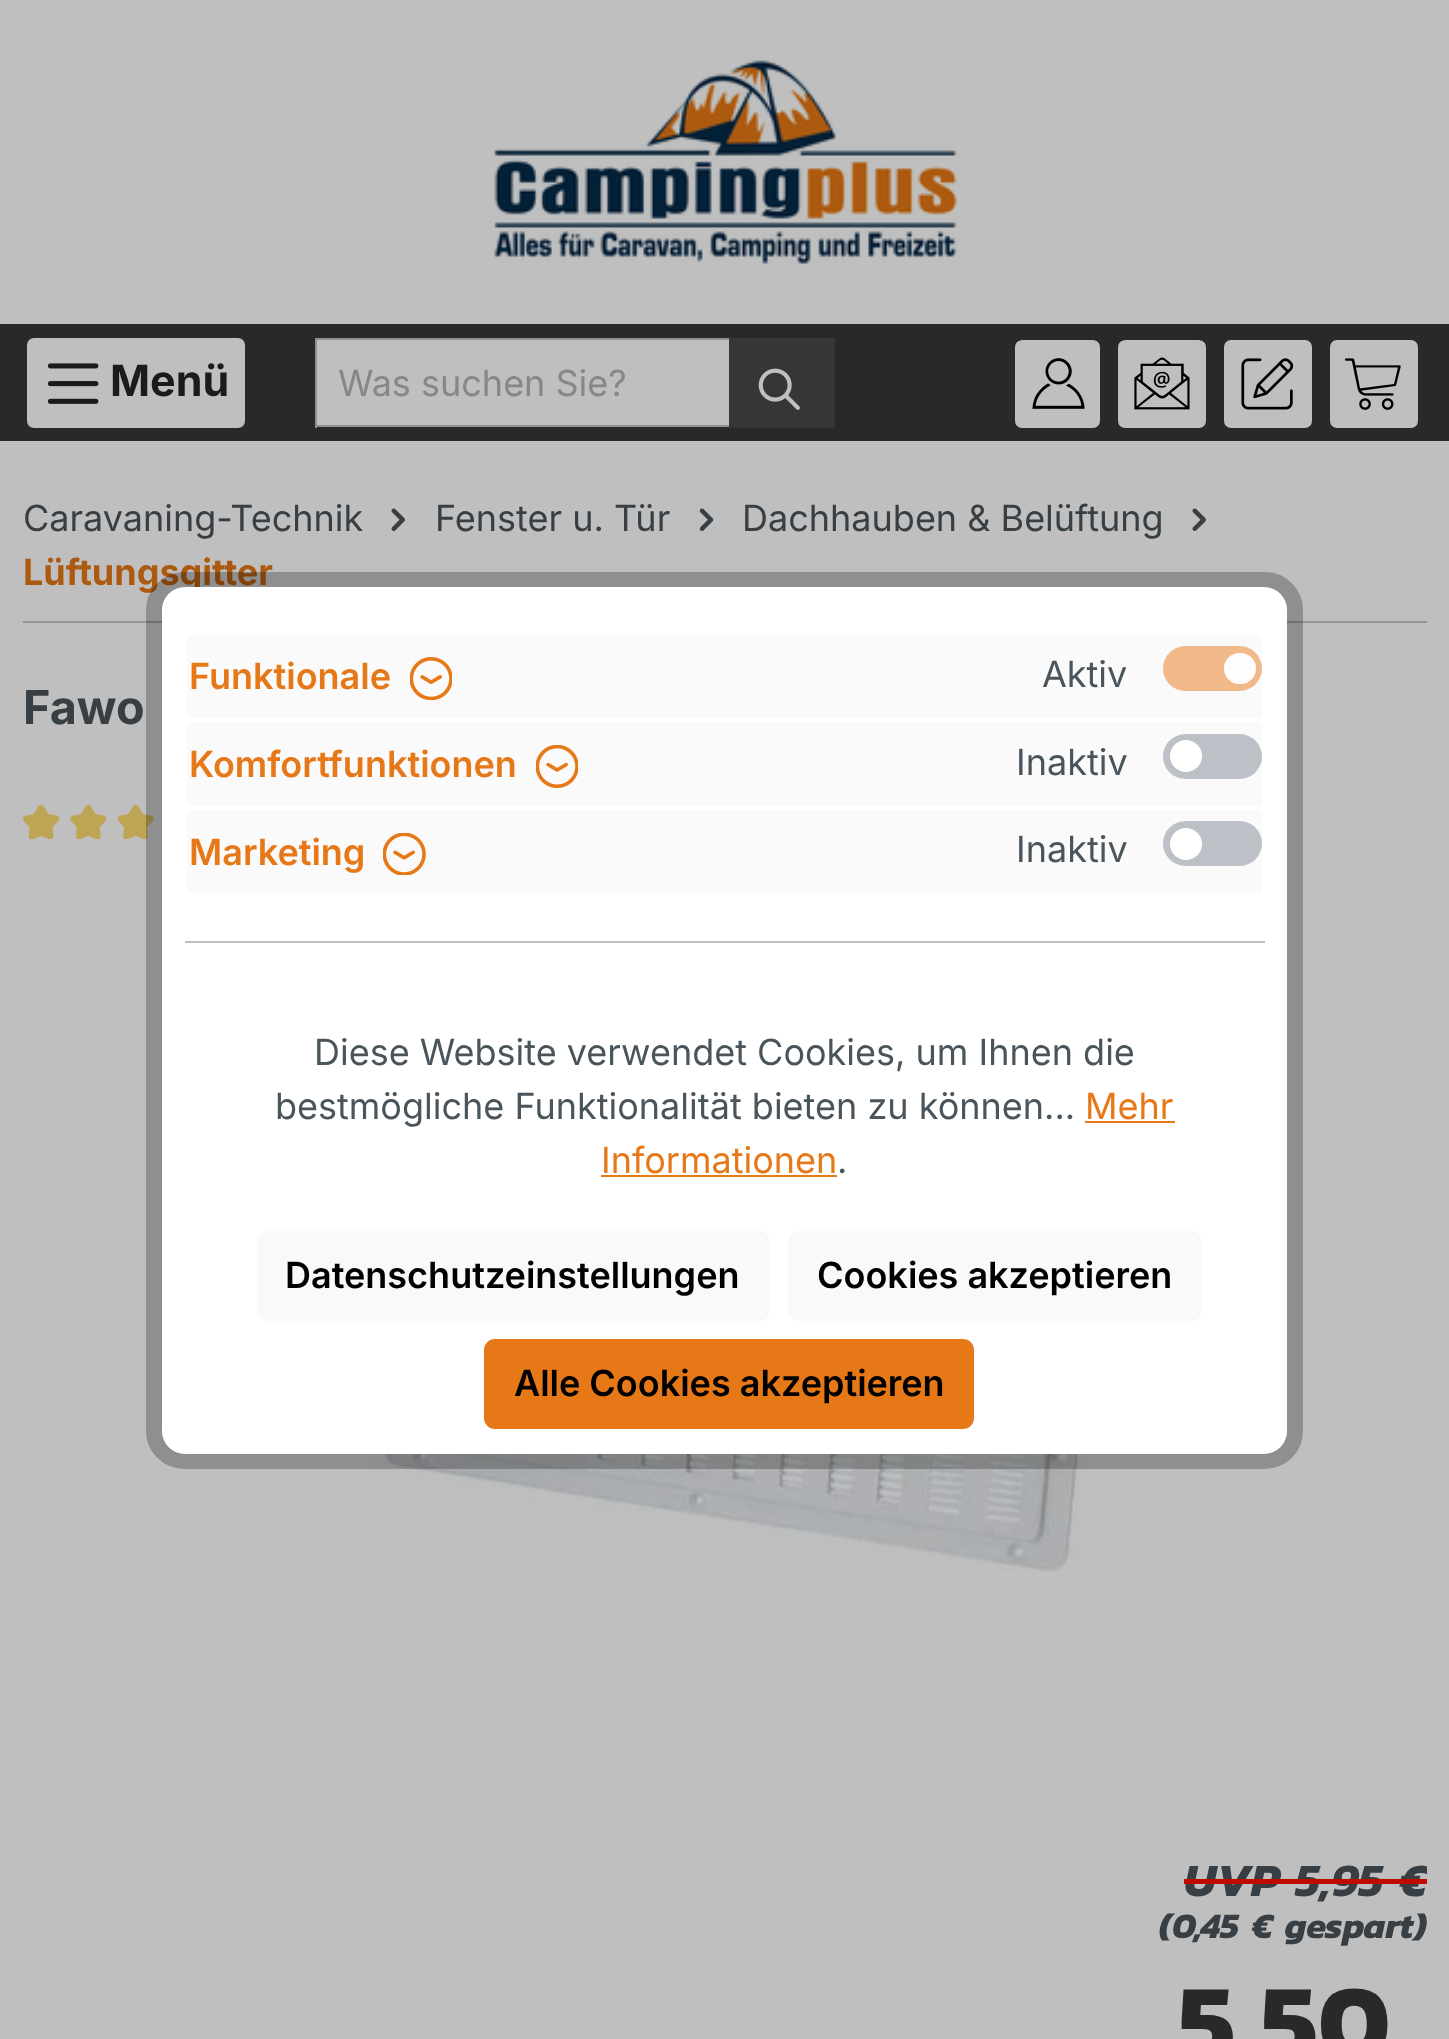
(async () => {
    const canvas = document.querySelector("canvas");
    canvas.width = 1449;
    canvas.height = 2039;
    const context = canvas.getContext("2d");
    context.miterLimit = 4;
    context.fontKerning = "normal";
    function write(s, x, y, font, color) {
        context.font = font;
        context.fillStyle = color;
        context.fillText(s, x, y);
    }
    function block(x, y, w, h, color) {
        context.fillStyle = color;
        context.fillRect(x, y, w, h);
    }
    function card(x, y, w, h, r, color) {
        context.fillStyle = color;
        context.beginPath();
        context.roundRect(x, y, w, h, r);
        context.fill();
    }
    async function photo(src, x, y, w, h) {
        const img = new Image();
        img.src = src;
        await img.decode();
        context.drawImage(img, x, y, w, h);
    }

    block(0, 0, 1449, 2039, "rgb(191, 191, 191)");
    await photo("media/1.png", 494, 60, 463, 204);
    block(0, 324, 1449, 117, "rgb(41, 41, 41)");
    card(27, 338, 218, 90, 7, "rgb(191, 191, 191)");
    await photo("media/2.png", 47, 363, 52, 41);
    write("Menü", 110, 396, "bold 43px Inter", "rgb(27, 27, 27)");
    block(317, 340, 412, 85, "rgb(191, 191, 191)");
    block(315, 338, 416, 2, "rgb(141, 145, 149)");
    block(315, 425, 416, 2, "rgb(141, 145, 149)");
    block(315, 338, 2, 90, "rgb(141, 145, 149)");
    write("Was suchen Sie?", 338, 396, "36px Inter", "rgb(135, 135, 135)");
    block(729, 338, 106, 90, "rgb(54, 54, 54)");
    await photo("media/3.png", 758, 368, 42, 42);
    context.save();
    context.beginPath();
    context.roundRect(1013, 340, 90, 94, 9);
    context.clip();
    card(1015, 340, 85, 88, 7, "rgb(191, 191, 191)");
    context.restore();
    await photo("media/4.png", 1032, 358, 53, 51);
    context.save();
    context.beginPath();
    context.roundRect(1116, 340, 92, 94, 9);
    context.clip();
    card(1118, 340, 88, 88, 7, "rgb(191, 191, 191)");
    context.restore();
    await photo("media/5.png", 1134, 357, 56, 53);
    card(1224, 340, 88, 88, 7, "rgb(191, 191, 191)");
    await photo("media/6.png", 1241, 358, 53, 52);
    card(1330, 340, 88, 88, 7, "rgb(191, 191, 191)");
    await photo("media/7.png", 1345, 358, 56, 52);
    block(23, 621, 1404, 2, "rgb(149, 149, 149)");
    write("Caravaning-Technik", 23, 531, "36px Inter", "rgb(56, 63, 68)");
    await photo("media/8.png", 391, 508, 14, 23);
    write("Fenster u. Tür", 435, 531, "36px Inter", "rgb(56, 63, 68)");
    await photo("media/9.png", 699, 508, 15, 23);
    write("Dachhauben & Belüftung", 742, 531, "36px Inter", "rgb(56, 63, 68)");
    await photo("media/8.png", 1192, 508, 14, 23);
    write("Lüftungsgitter", 23, 585, "bold 36px Inter", "rgb(173, 90, 17)");
    write("Fawo", 23, 724, "bold 46.75px Inter", "rgb(56, 63, 68)");
    await photo("media/10.png", 23, 804, 37, 35);
    await photo("media/11.png", 70, 804, 37, 35);
    await photo("media/12.png", 117, 804, 37, 35);
    await photo("media/13.png", 371, 1454, 720, 118);
    context.save();
    context.beginPath();
    context.rect(23, 1859, 1404, 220);
    context.clip();
    write("UVP 5,95 €", 1184, 1896, "italic bold 46.75px Kanit", "rgb(56, 63, 68)");
    context.restore();
    block(1184, 1879, 243, 5, "rgb(191, 10, 0)");
    write("(0,45 € gespart)", 1159, 1938, "italic bold 36px Kanit", "rgb(56, 63, 68)");
    write("5,50", 1179, 2059, "bold 108px Kanit", "rgb(41, 41, 41)");
    context.beginPath();
    context.roundRect(154, 580, 1141, 881, 30);
    context.strokeStyle = "rgba(0, 0, 0, 0.25)";
    context.lineWidth = 16;
    context.stroke();
    card(162, 587, 1125, 867, 23, "rgb(255, 255, 255)");
    block(185, 941, 1080, 2, "rgb(188, 193, 199)");
    context.fillStyle = "rgb(250, 250, 250)";
    context.beginPath();
    context.roundRect(187, 635, 1075, 83, [5, 5, 0, 0]);
    context.fill();
    write("Funktionale", 189, 689, "600 36px Inter", "rgb(231, 120, 23)");
    await photo("media/14.png", 410, 657, 42, 43);
    write("Aktiv", 1042, 687, "36px Inter", "rgb(74, 84, 91)");
    card(1163, 646, 99, 45, 22.5, "rgb(241, 185, 137)");
    card(1224, 653, 32, 31, 15.5, "rgb(253, 253, 253)");
    context.fillStyle = "rgb(250, 250, 250)";
    context.beginPath();
    context.roundRect(187, 722, 1075, 84, [5, 5, 0, 0]);
    context.fill();
    write("Komfortfunktionen", 189, 777, "600 36px Inter", "rgb(231, 120, 23)");
    await photo("media/15.png", 536, 745, 42, 43);
    write("Inaktiv", 1016, 775, "36px Inter", "rgb(74, 84, 91)");
    card(1163, 734, 99, 45, 22.5, "rgb(188, 193, 199)");
    context.fillStyle = "rgb(255, 255, 255)";
    context.beginPath();
    context.arc(1186, 756, 16, 0, Math.PI * 2);
    context.fill();
    context.fillStyle = "rgb(250, 250, 250)";
    context.beginPath();
    context.roundRect(187, 810, 1075, 83, [5, 5, 0, 0]);
    context.fill();
    write("Marketing", 189, 865, "600 36px Inter", "rgb(231, 120, 23)");
    await photo("media/16.png", 383, 833, 43, 42);
    write("Inaktiv", 1016, 862, "36px Inter", "rgb(74, 84, 91)");
    card(1163, 821, 99, 45, 22.5, "rgb(188, 193, 199)");
    context.fillStyle = "rgb(255, 255, 255)";
    context.beginPath();
    context.arc(1186, 844, 16, 0, Math.PI * 2);
    context.fill();
    write("Diese Website verwendet Cookies, um Ihnen die", 314, 1065, "36px Inter", "rgb(74, 84, 91)");
    write("bestmögliche Funktionalität bieten zu können...", 275, 1119, "36px Inter", "rgb(74, 84, 91)");
    write("Mehr", 1085, 1119, "36px Inter", "rgb(231, 120, 23)");
    block(1085, 1121, 90, 2, "rgb(231, 120, 23)");
    write("Informationen", 601, 1173, "36px Inter", "rgb(231, 120, 23)");
    block(601, 1175, 236, 2, "rgb(231, 120, 23)");
    write(".", 837, 1173, "36px Inter", "rgb(74, 84, 91)");
    card(257, 1231, 513, 90, 11, "rgb(249, 249, 249)");
    write("Datenschutzeinstellungen", 285, 1288, "600 36px Inter", "rgb(0, 0, 0)");
    card(788, 1231, 414, 90, 11, "rgb(249, 249, 249)");
    write("Cookies akzeptieren", 817, 1288, "600 36px Inter", "rgb(0, 0, 0)");
    context.fillStyle = "rgb(231, 120, 23)";
    context.beginPath();
    context.roundRect(485, 1340, 488, 88, 10);
    context.fill();
    context.strokeStyle = "rgb(231, 120, 23)";
    context.lineWidth = 2;
    context.stroke();
    write("Alle Cookies akzeptieren", 514, 1396, "600 36px Inter", "rgb(0, 0, 0)");
})();
